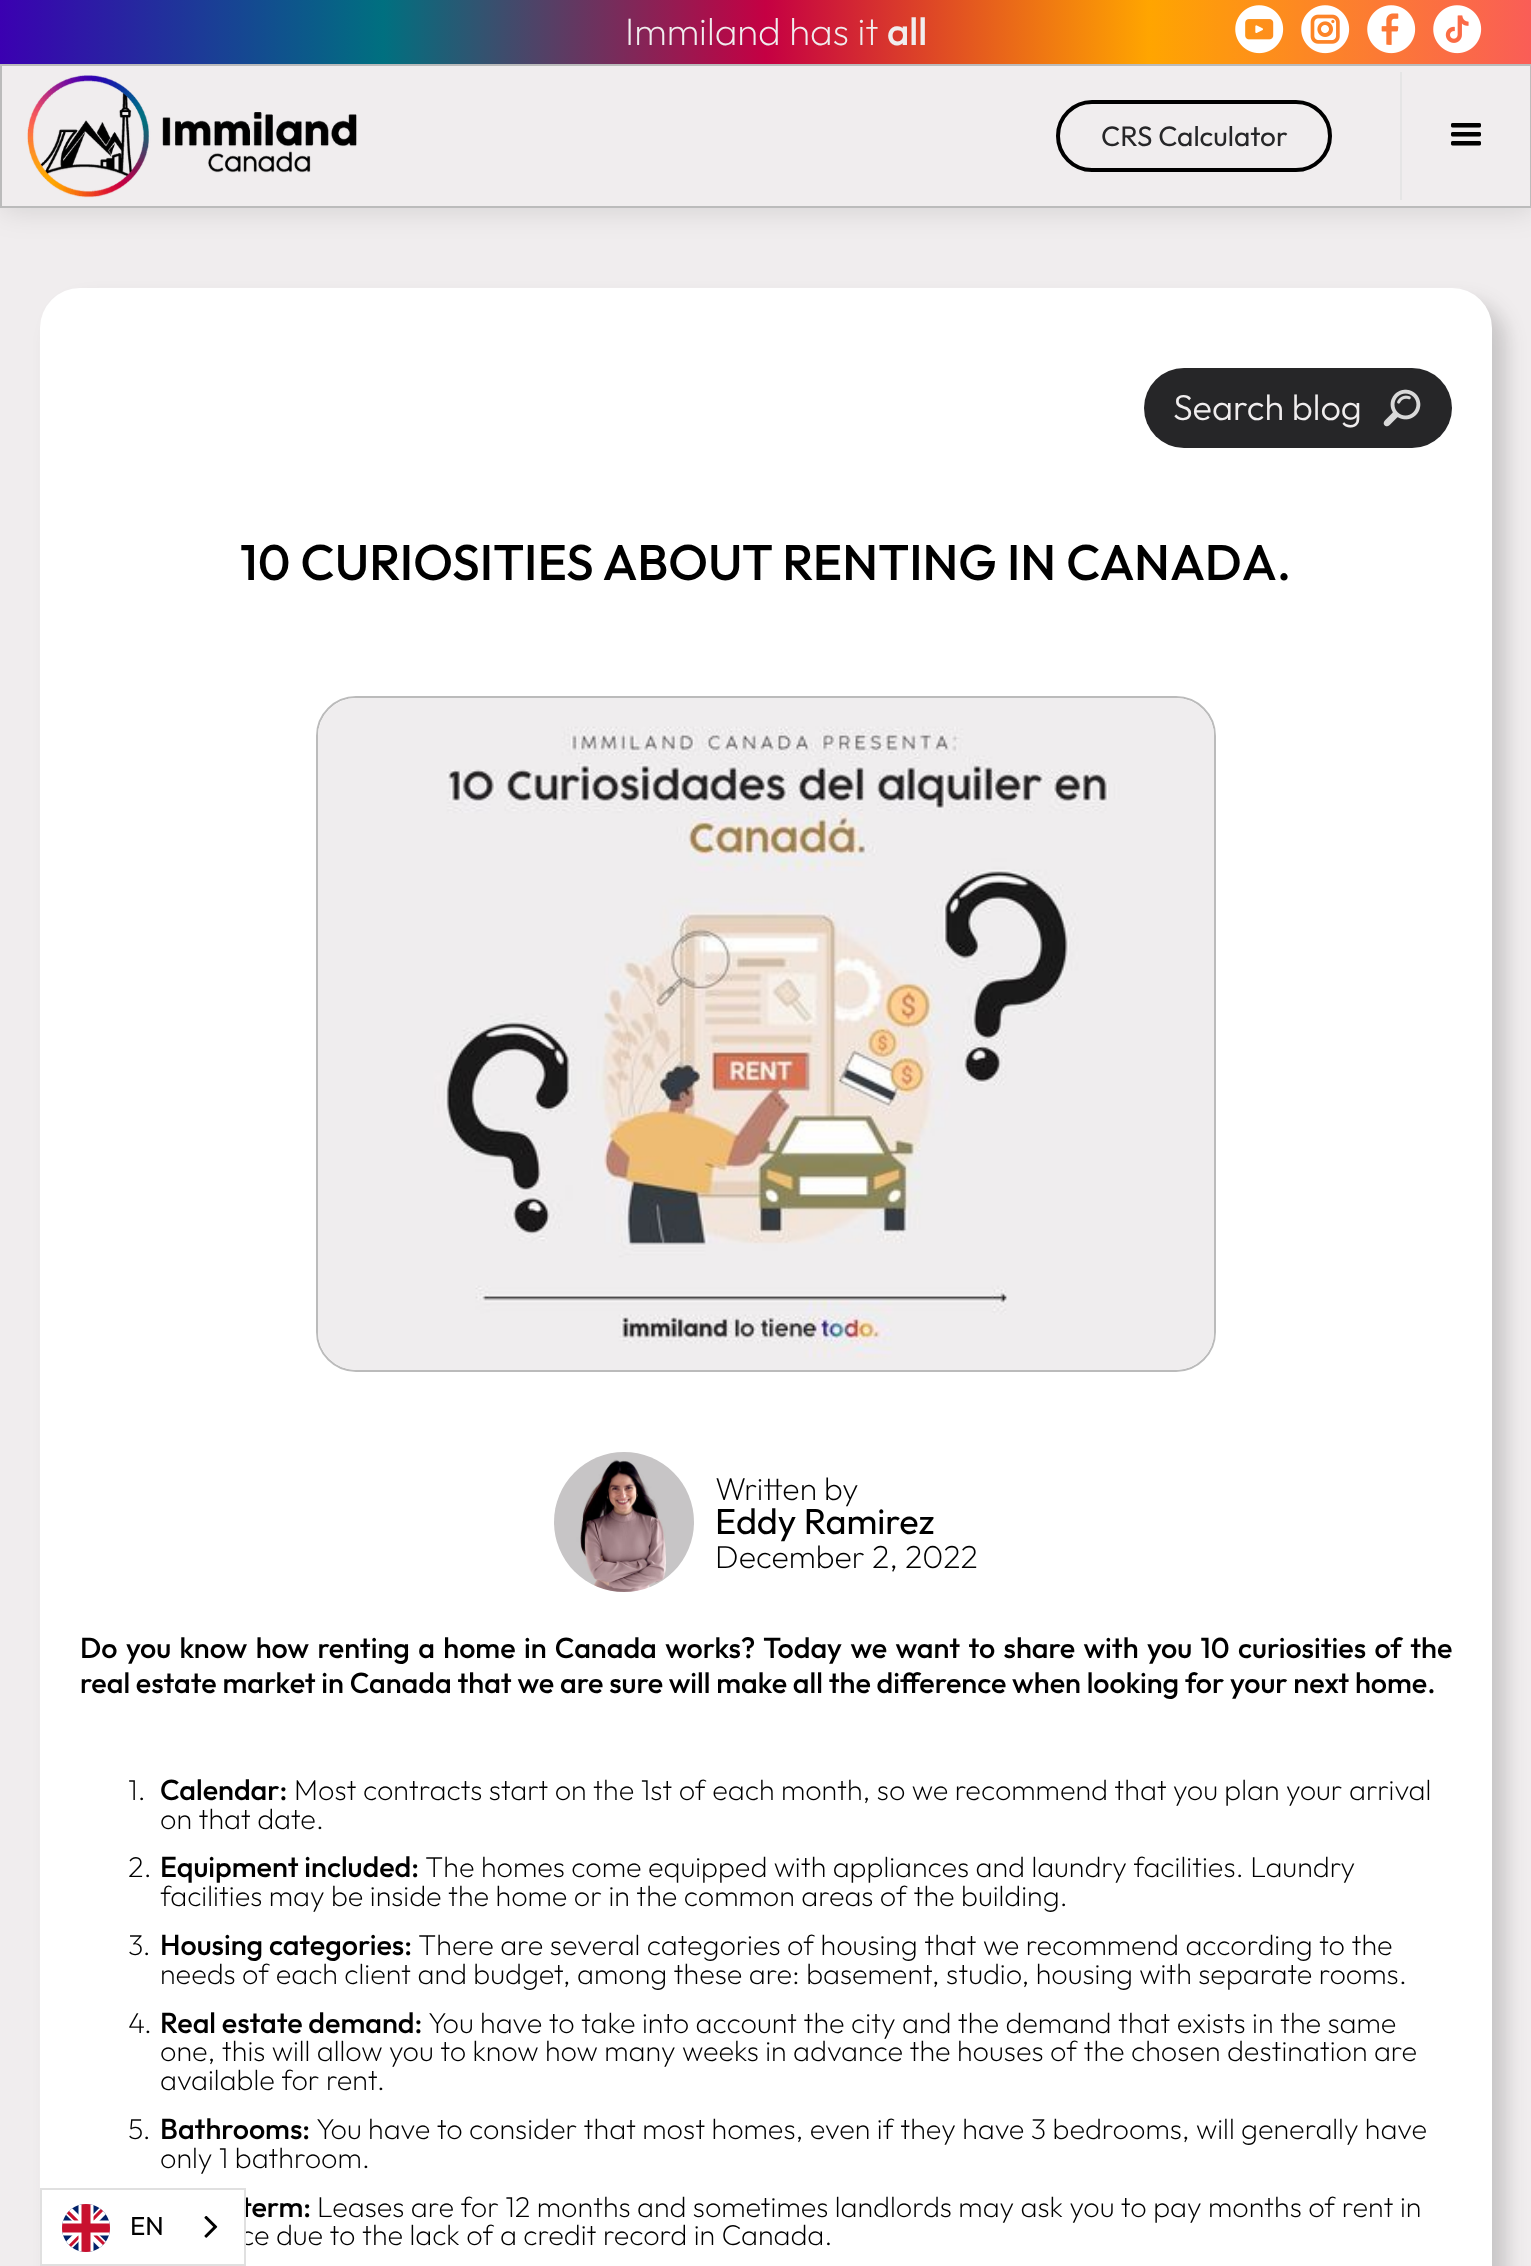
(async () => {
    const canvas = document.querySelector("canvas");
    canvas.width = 1531;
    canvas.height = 2266;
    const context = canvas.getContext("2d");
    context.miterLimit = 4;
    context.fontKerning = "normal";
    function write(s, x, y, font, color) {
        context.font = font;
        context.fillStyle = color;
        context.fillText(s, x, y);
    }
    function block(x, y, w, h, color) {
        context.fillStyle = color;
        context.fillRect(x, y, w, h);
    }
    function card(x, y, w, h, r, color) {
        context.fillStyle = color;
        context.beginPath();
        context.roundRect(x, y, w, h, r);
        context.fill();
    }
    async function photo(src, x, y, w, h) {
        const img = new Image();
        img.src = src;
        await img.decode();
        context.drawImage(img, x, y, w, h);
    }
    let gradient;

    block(0, 0, 1531, 2266, "rgb(240, 237, 238)");
    context.fillStyle = "rgba(0, 0, 0, 0.12)";
    context.filter = "blur(15px)";
    context.beginPath();
    context.rect(2, 2, 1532, 208);
    context.fill();
    context.filter = "none";
    gradient = context.createLinearGradient(0, 32, 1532, 32);
    gradient.addColorStop(0, "rgb(59, 0, 177)");
    gradient.addColorStop(0.25, "rgb(0, 112, 128)");
    gradient.addColorStop(0.5, "rgb(197, 0, 67)");
    gradient.addColorStop(0.75, "rgb(255, 165, 0)");
    gradient.addColorStop(1, "rgb(250, 93, 87)");
    context.fillStyle = gradient;
    context.fillRect(0, 0, 1531, 64);
    write("Immiland has it", 625, 45, "200 38.5px Outfit", "rgb(240, 237, 238)");
    write("all", 887, 45, "500 38.5px Outfit", "rgb(240, 237, 238)");
    await photo("media/1.png", 1235, 5, 49, 49);
    await photo("media/2.png", 1301, 5, 49, 49);
    await photo("media/3.png", 1367, 5, 49, 49);
    await photo("media/4.png", 1433, 5, 49, 49);
    context.beginPath();
    context.rect(1, 65, 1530, 142);
    context.fill();
    context.strokeStyle = "rgb(187, 187, 187)";
    context.lineWidth = 2;
    context.stroke();
    await photo("media/5.png", 27, 75, 330, 123);
    context.beginPath();
    context.roundRect(1058, 102, 272, 68, 34);
    context.strokeStyle = "rgb(0, 0, 0)";
    context.lineWidth = 4;
    context.stroke();
    write("CRS Calculator", 1101, 146, "28px Outfit", "rgb(38, 38, 40)");
    block(1400, 72, 2, 128, "rgb(229, 229, 229)");
    await photo("media/6.png", 1451, 123, 30, 23);
    context.fillStyle = "rgba(38, 38, 40, 0.2)";
    context.filter = "blur(10px)";
    context.beginPath();
    context.roundRect(54, 302, 1452, 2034, 40);
    context.fill();
    context.filter = "none";
    card(40, 288, 1452, 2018, 40, "rgb(255, 255, 255)");
    card(1144, 368, 308, 80, 40, "rgb(38, 38, 40)");
    write("Search blog", 1173, 420, "300 36px Outfit", "rgb(240, 237, 238)");
    await photo("media/7.png", 1383, 389, 38, 38);
    write("10 CURIOSITIES ABOUT RENTING IN CANADA.", 240, 580, "500 50px Outfit", "rgb(0, 0, 0)");
    context.beginPath();
    context.roundRect(317, 697, 898, 674, 39);
    context.strokeStyle = "rgb(187, 187, 187)";
    context.lineWidth = 2;
    context.stroke();
    await photo("media/8.png", 318, 698, 896, 672);
    await photo("media/9.png", 554, 1452, 140, 140);
    write("Written by", 715, 1500, "200 32px Outfit", "rgb(0, 0, 0)");
    write("Eddy Ramirez", 715, 1534, "36px Outfit", "rgb(0, 0, 0)");
    write("December 2, 2022", 715, 1568, "200 32px Outfit", "rgb(0, 0, 0)");
    context.wordSpacing = "2.6px";
    write("Do you know how renting a home in Canada works? Today we want to share with you 10 curiosities of the", 80, 1658, "500 28.8px Outfit", "rgb(0, 0, 0)");
    context.wordSpacing = "0px";
    write("real estate market in Canada that we are sure will make all the difference when looking for your next home.", 80, 1693, "500 28.8px Outfit", "rgb(0, 0, 0)");
    write("1.", 128, 1800, "200 28.8px Outfit", "rgb(0, 0, 0)");
    write("Calendar:", 160, 1800, "500 28.8px Outfit", "rgb(0, 0, 0)");
    write("Most contracts start on the 1st of each month, so we recommend that you plan your arrival", 294, 1800, "200 28.8px Outfit", "rgb(0, 0, 0)");
    write("on that date.", 160, 1829, "200 28.8px Outfit", "rgb(0, 0, 0)");
    write("2.", 128, 1877, "200 28.8px Outfit", "rgb(0, 0, 0)");
    write("Equipment included:", 160, 1877, "500 28.8px Outfit", "rgb(0, 0, 0)");
    write("The homes come equipped with appliances and laundry facilities. Laundry", 425, 1877, "200 28.8px Outfit", "rgb(0, 0, 0)");
    write("facilities may be inside the home or in the common areas of the building.", 160, 1906, "200 28.8px Outfit", "rgb(0, 0, 0)");
    write("3.", 128, 1955, "200 28.8px Outfit", "rgb(0, 0, 0)");
    write("Housing categories:", 160, 1955, "500 28.8px Outfit", "rgb(0, 0, 0)");
    write("There are several categories of housing that we recommend according to the", 418, 1955, "200 28.8px Outfit", "rgb(0, 0, 0)");
    write("needs of each client and budget, among these are: basement, studio, housing with separate rooms.", 160, 1984, "200 28.8px Outfit", "rgb(0, 0, 0)");
    write("4.", 128, 2033, "200 28.8px Outfit", "rgb(0, 0, 0)");
    write("Real estate demand:", 160, 2033, "500 28.8px Outfit", "rgb(0, 0, 0)");
    write("You have to take into account the city and the demand that exists in the same", 428, 2033, "200 28.8px Outfit", "rgb(0, 0, 0)");
    write("one, this will allow you to know how many weeks in advance the houses of the chosen destination are", 160, 2061, "200 28.8px Outfit", "rgb(0, 0, 0)");
    write("available for rent.", 160, 2090, "200 28.8px Outfit", "rgb(0, 0, 0)");
    write("5.", 128, 2139, "200 28.8px Outfit", "rgb(0, 0, 0)");
    write("Bathrooms:", 160, 2139, "500 28.8px Outfit", "rgb(0, 0, 0)");
    write("You have to consider that most homes, even if they have 3 bedrooms, will generally have", 316, 2139, "200 28.8px Outfit", "rgb(0, 0, 0)");
    write("only 1 bathroom.", 160, 2168, "200 28.8px Outfit", "rgb(0, 0, 0)");
    write("term:", 241, 2217, "500 28.8px Outfit", "rgb(0, 0, 0)");
    write("Leases are for 12 months and sometimes landlords may ask you to pay months of rent in", 317, 2217, "200 28.8px Outfit", "rgb(0, 0, 0)");
    write("ce due to the lack of a credit record in Canada.", 240, 2245, "200 28.8px Outfit", "rgb(0, 0, 0)");
    block(241, 2203, 3, 41, "rgb(255, 255, 255)");
    context.strokeStyle = "rgb(224, 224, 224)";
    context.strokeRect(41, 2189, 204, 76);
    await photo("media/10.png", 62, 2204, 48, 48);
    write("EN", 130, 2235, "26px Outfit", "rgb(0, 0, 0)");
    await photo("media/11.png", 204, 2216, 14, 22);
})();
